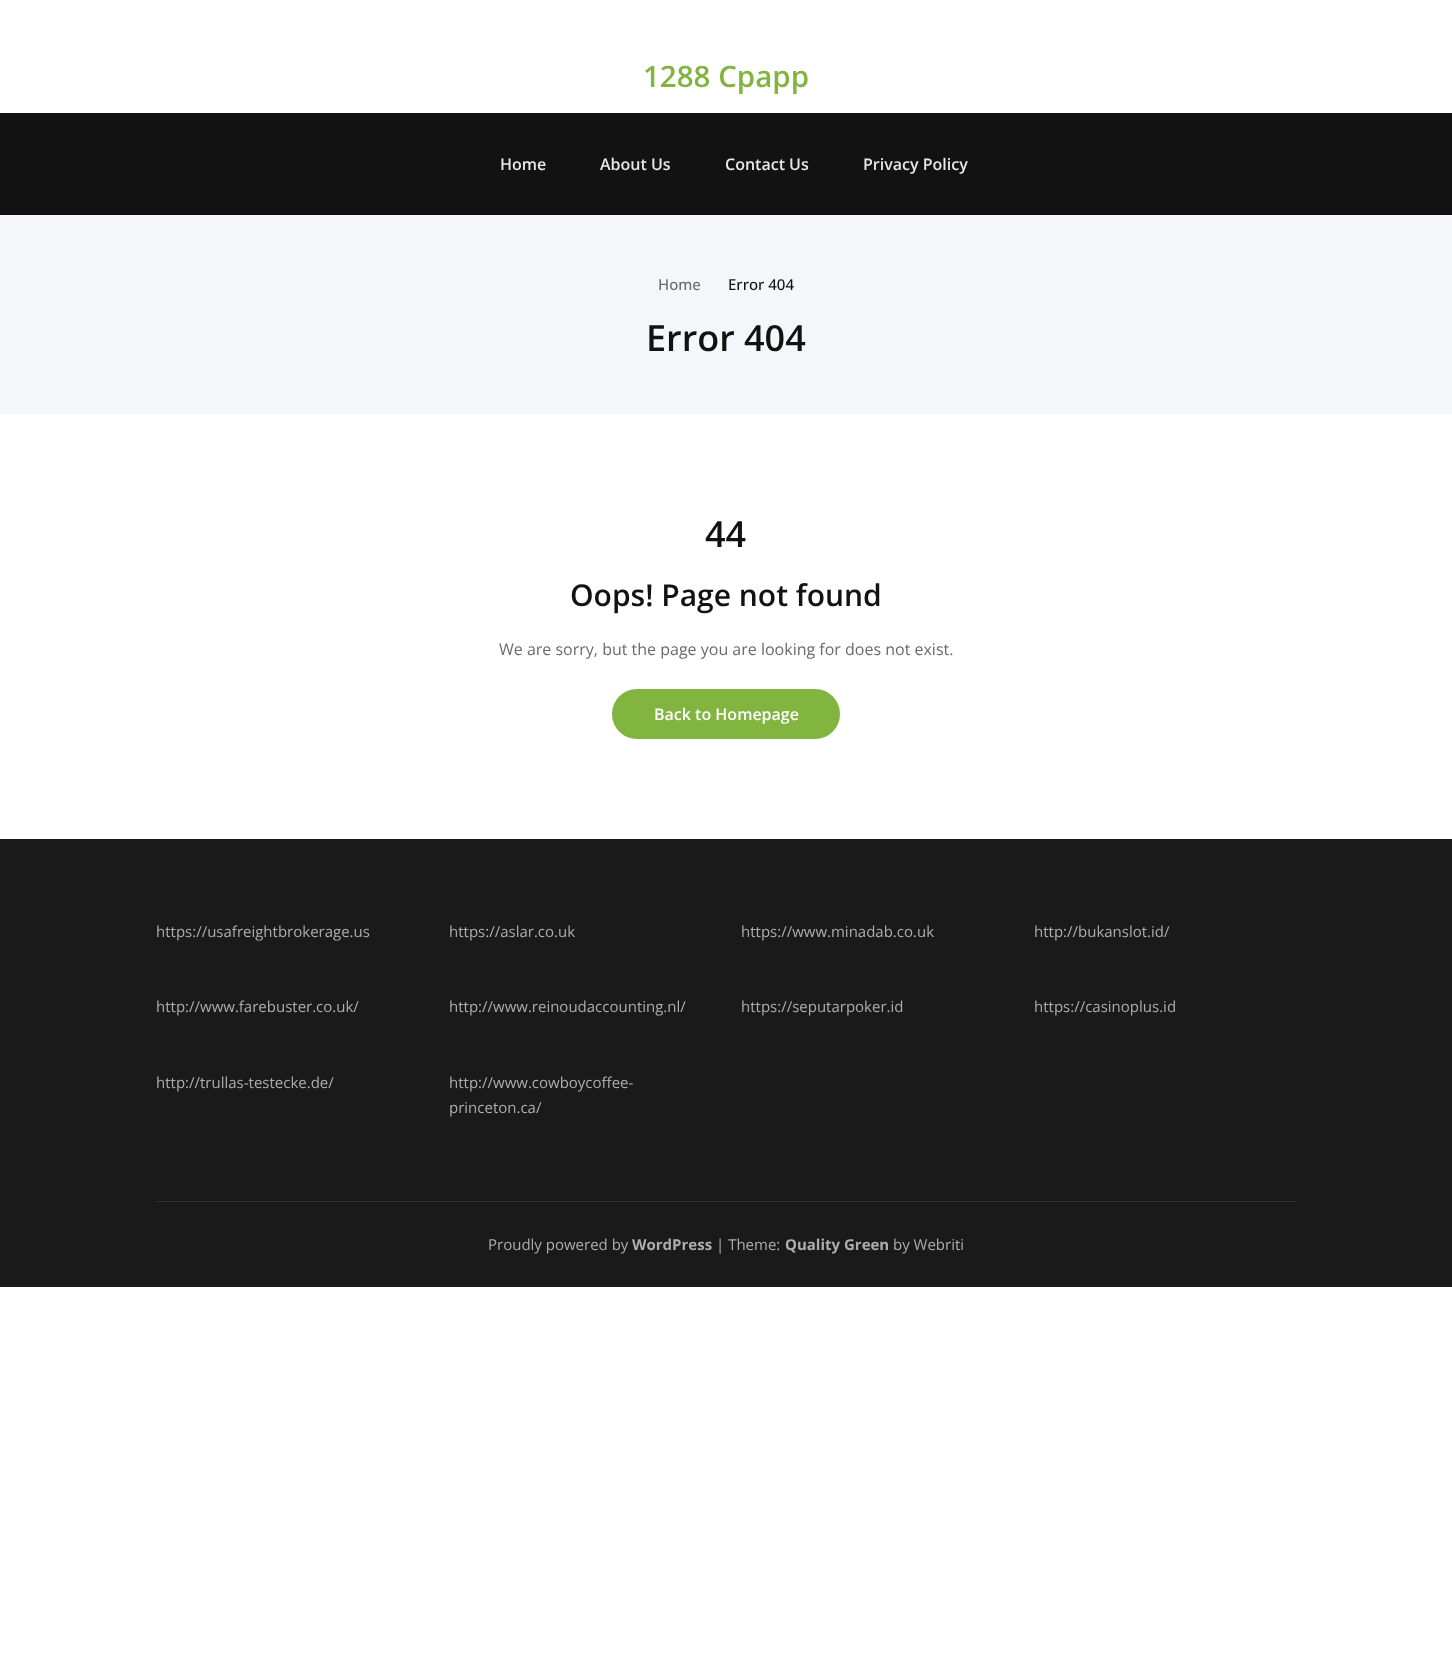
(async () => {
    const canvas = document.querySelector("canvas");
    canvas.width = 1452;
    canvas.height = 1677;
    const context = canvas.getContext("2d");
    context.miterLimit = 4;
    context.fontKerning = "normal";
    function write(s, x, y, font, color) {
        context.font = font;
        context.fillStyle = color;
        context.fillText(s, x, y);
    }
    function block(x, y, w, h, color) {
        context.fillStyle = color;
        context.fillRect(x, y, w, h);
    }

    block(0, 0, 1452, 1677, "rgb(255, 255, 255)");
    write("1288 Cpapp", 643, 87, "600 29.5px Open Sans", "rgb(130, 180, 64)");
    block(0, 113, 1452, 102, "rgb(18, 18, 19)");
    write("Home", 500, 170, "600 16px Open Sans", "rgb(232, 232, 232)");
    write("About Us", 600, 170, "600 16px Open Sans", "rgb(232, 232, 232)");
    write("Contact Us", 725, 170, "600 16px Open Sans", "rgb(232, 232, 232)");
    write("Privacy Policy", 863, 170, "600 16px Open Sans", "rgb(232, 232, 232)");
    block(0, 215, 1452, 199, "rgb(245, 246, 249)");
    write("Home", 658, 290, "500 15px Open Sans", "rgb(106, 106, 106)");
    write("Error 404", 728, 290, "500 15px Open Sans", "rgb(18, 18, 18)");
    write("Error 404", 646, 351, "600 36px Open Sans", "rgb(18, 18, 18)");
    write("44", 705, 547, "600 36px Open Sans", "rgb(18, 18, 18)");
    write("Oops! Page not found", 570, 606, "600 30px Open Sans", "rgb(18, 18, 18)");
    write("We are sorry, but the page you are looking for does not exist.", 499, 655, "16px Open Sans", "rgb(106, 106, 106)");
    context.fillStyle = "rgb(130, 180, 64)";
    context.beginPath();
    context.roundRect(613, 690, 226, 48, 24);
    context.fill();
    context.strokeStyle = "rgb(130, 180, 64)";
    context.lineWidth = 2;
    context.stroke();
    write("Back to Homepage", 654, 720, "600 16px Open Sans", "rgb(255, 255, 255)");
    block(0, 839, 1452, 448, "rgb(26, 26, 26)");
    write("https://usafreightbrokerage.us", 156, 937, "15px Open Sans", "rgb(173, 173, 173)");
    write("https://aslar.co.uk", 449, 937, "15px Open Sans", "rgb(173, 173, 173)");
    write("https://www.minadab.co.uk", 741, 937, "15px Open Sans", "rgb(173, 173, 173)");
    write("http://bukanslot.id/", 1034, 937, "15px Open Sans", "rgb(173, 173, 173)");
    write("http://www.farebuster.co.uk/", 156, 1012, "15px Open Sans", "rgb(173, 173, 173)");
    write("http://www.reinoudaccounting.nl/", 449, 1012, "15px Open Sans", "rgb(173, 173, 173)");
    write("https://seputarpoker.id", 741, 1012, "15px Open Sans", "rgb(173, 173, 173)");
    write("https://casinoplus.id", 1034, 1012, "15px Open Sans", "rgb(173, 173, 173)");
    write("http://trullas-testecke.de/", 156, 1088, "15px Open Sans", "rgb(173, 173, 173)");
    write("http://www.cowboycoffee-", 449, 1088, "15px Open Sans", "rgb(173, 173, 173)");
    write("princeton.ca/", 449, 1113, "15px Open Sans", "rgb(173, 173, 173)");
    block(156, 1201, 1140, 1, "rgb(49, 49, 49)");
    write("Proudly powered by", 488, 1250, "15px Open Sans", "rgb(173, 173, 173)");
    write("WordPress", 632, 1250, "bold 15px Open Sans", "rgb(173, 173, 173)");
    write("| Theme:", 716, 1250, "15px Open Sans", "rgb(173, 173, 173)");
    write("Quality Green", 785, 1250, "bold 15px Open Sans", "rgb(173, 173, 173)");
    write("by Webriti", 893, 1250, "15px Open Sans", "rgb(173, 173, 173)");
})();
